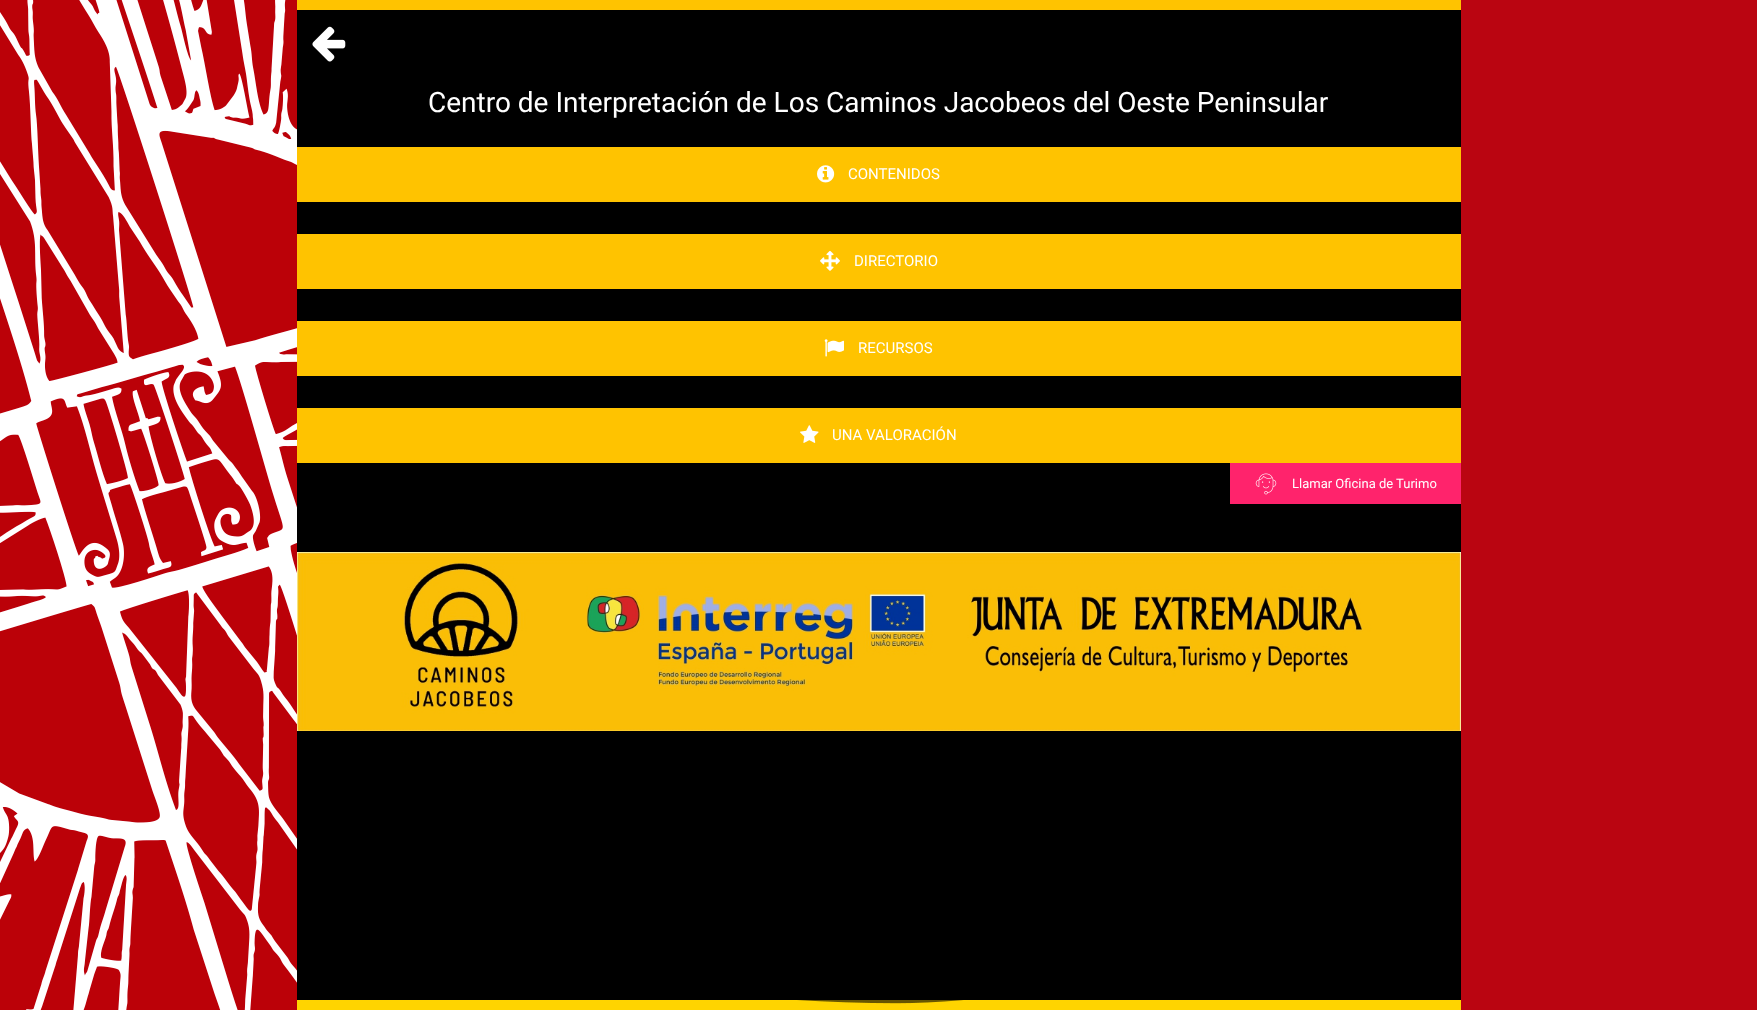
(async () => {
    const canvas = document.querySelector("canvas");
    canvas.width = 1757;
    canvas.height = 1010;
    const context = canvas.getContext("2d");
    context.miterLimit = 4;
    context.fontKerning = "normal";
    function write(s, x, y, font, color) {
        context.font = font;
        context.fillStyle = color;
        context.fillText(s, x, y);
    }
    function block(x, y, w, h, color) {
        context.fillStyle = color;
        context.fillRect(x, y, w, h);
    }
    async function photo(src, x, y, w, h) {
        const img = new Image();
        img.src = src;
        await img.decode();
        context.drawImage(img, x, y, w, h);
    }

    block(0, 0, 1757, 1010, "rgb(186, 5, 17)");
    await photo("media/1.png", 0, 0, 297, 1010);
    block(297, 0, 1164, 10, "rgb(255, 195, 0)");
    block(797, 1000, 167, 4, "rgb(0, 0, 0)");
    await photo("media/2.png", 297, 1000, 1164, 10);
    block(297, 10, 1164, 990, "rgb(0, 0, 0)");
    await photo("media/3.png", 312, 26, 34, 36);
    write("Centro de Interpretación de Los Caminos Jacobeos del Oeste Peninsular", 428, 112, "28px Roboto", "rgb(255, 255, 255)");
    block(297, 147, 1164, 55, "rgb(255, 195, 0)");
    await photo("media/4.png", 817, 165, 18, 18);
    write("CONTENIDOS", 848, 179, "15px Roboto", "rgb(255, 255, 255)");
    block(297, 234, 1164, 55, "rgb(255, 195, 0)");
    await photo("media/5.png", 820, 250, 20, 21);
    write("DIRECTORIO", 854, 266, "15px Roboto", "rgb(255, 255, 255)");
    block(297, 321, 1164, 55, "rgb(255, 195, 0)");
    await photo("media/6.png", 824, 339, 20, 18);
    write("RECURSOS", 858, 353, "15px Roboto", "rgb(255, 255, 255)");
    block(297, 408, 1164, 55, "rgb(255, 195, 0)");
    await photo("media/7.png", 800, 425, 19, 18);
    write("UNA VALORACIÓN", 832, 440, "15px Roboto", "rgb(255, 255, 255)");
    block(1230, 463, 231, 41, "rgb(255, 35, 108)");
    await photo("media/8.png", 1255, 473, 22, 22);
    write("Llamar Oficina de Turimo", 1292, 488, "13px Roboto", "rgb(255, 255, 255)");
    await photo("media/9.png", 297, 552, 1164, 179);
})();
